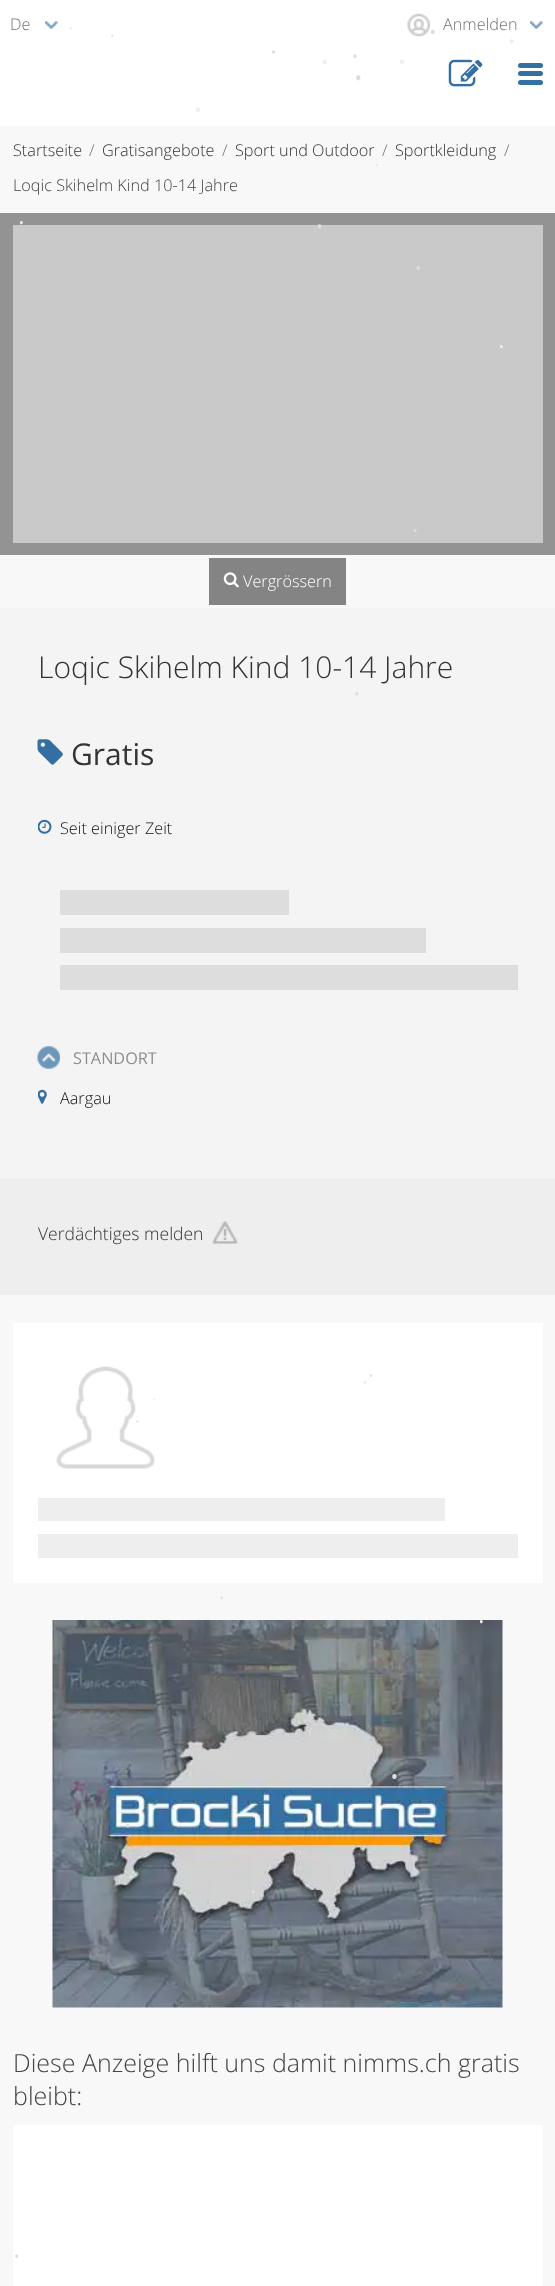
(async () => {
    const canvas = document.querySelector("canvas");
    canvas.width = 555;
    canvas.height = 2286;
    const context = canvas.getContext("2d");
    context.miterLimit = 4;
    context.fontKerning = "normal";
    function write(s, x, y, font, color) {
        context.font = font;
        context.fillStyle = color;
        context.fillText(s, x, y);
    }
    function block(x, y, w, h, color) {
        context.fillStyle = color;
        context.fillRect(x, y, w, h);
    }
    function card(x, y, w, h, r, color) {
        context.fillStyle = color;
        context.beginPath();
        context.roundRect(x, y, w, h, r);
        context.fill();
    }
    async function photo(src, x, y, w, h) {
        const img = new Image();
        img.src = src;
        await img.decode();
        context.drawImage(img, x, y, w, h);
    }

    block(0, 0, 555, 2286, "rgb(255, 255, 255)");
    write("De", 10, 30, "300 16.25px Open Sans", "rgb(115, 115, 115)");
    await photo("media/1.png", 45, 21, 13, 8);
    await photo("media/2.png", 407, 13, 23, 24);
    write("Anmelden", 443, 30, "300 16.25px Open Sans", "rgb(115, 115, 115)");
    await photo("media/3.png", 530, 21, 13, 8);
    await photo("media/4.png", 448, 59, 35, 28);
    card(518, 63, 25, 5, 2.5, "rgb(52, 111, 162)");
    card(518, 71, 25, 5, 2.5, "rgb(52, 111, 162)");
    card(518, 80, 25, 5, 2.5, "rgb(52, 111, 162)");
    block(0, 126, 555, 2160, "rgb(248, 248, 248)");
    write("Startseite", 13, 156, "300 16.25px Open Sans", "rgb(51, 51, 51)");
    write("/", 89, 156, "300 16.25px Open Sans", "rgb(115, 115, 115)");
    write("Gratisangebote", 102, 156, "300 16.25px Open Sans", "rgb(51, 51, 51)");
    write("/", 222, 156, "300 16.25px Open Sans", "rgb(115, 115, 115)");
    write("Sport und Outdoor", 235, 156, "300 16.25px Open Sans", "rgb(51, 51, 51)");
    write("/", 382, 156, "300 16.25px Open Sans", "rgb(115, 115, 115)");
    write("Sportkleidung", 395, 156, "300 16.25px Open Sans", "rgb(51, 51, 51)");
    write("/", 504, 156, "300 16.25px Open Sans", "rgb(115, 115, 115)");
    write("Loqic Skihelm Kind 10-14 Jahre", 13, 191, "300 16.25px Open Sans", "rgb(68, 68, 68)");
    block(0, 213, 555, 342, "rgb(147, 147, 147)");
    block(13, 225, 530, 318, "rgb(201, 201, 201)");
    block(209, 558, 137, 47, "rgb(132, 132, 132)");
    await photo("media/5.png", 223, 572, 16, 16);
    write("Vergrössern", 243, 587, "300 16.25px Open Sans", "rgb(255, 255, 255)");
    block(0, 608, 555, 571, "rgb(244, 244, 244)");
    write("Loqic Skihelm Kind 10-14 Jahre", 38, 678, "300 30px Open Sans", "rgb(51, 51, 51)");
    await photo("media/6.png", 37, 739, 26, 26);
    write("Gratis", 71, 765, "30px Open Sans", "rgb(51, 51, 51)");
    await photo("media/7.png", 38, 819, 14, 15);
    write("Seit einiger Zeit", 60, 834, "300 16.25px Open Sans", "rgb(17, 17, 17)");
    block(60, 890, 229, 25, "rgb(221, 221, 221)");
    block(60, 928, 366, 25, "rgb(221, 221, 221)");
    block(60, 965, 458, 25, "rgb(221, 221, 221)");
    await photo("media/8.png", 37, 1046, 23, 23);
    write("STANDORT", 73, 1064, "16.25px Open Sans", "rgb(142, 142, 142)");
    await photo("media/9.png", 38, 1089, 9, 15);
    write("Aargau", 60, 1104, "300 16.25px Open Sans", "rgb(17, 17, 17)");
    block(0, 1179, 555, 116, "rgb(238, 238, 238)");
    write("Verdächtiges melden", 38, 1240, "300 17.5px Open Sans", "rgb(51, 51, 51)");
    await photo("media/10.png", 212, 1221, 26, 23);
    block(13, 1323, 530, 260, "rgb(255, 255, 255)");
    await photo("media/11.png", 56, 1366, 99, 103);
    block(38, 1498, 407, 23, "rgb(238, 238, 238)");
    block(38, 1534, 480, 24, "rgb(238, 238, 238)");
    await photo("media/12.png", 52, 1620, 451, 388);
    write("Diese Anzeige hilft uns damit nimms.ch gratis", 13, 2072, "300 25px Open Sans", "rgb(68, 68, 68)");
    write("bleibt:", 13, 2105, "300 25px Open Sans", "rgb(68, 68, 68)");
    block(13, 2125, 530, 161, "rgb(255, 255, 255)");
    write("•", 69, 32, "300 10px Open Sans", "rgb(221, 221, 221)");
    write("•", 428, 41, "300 25px Open Sans", "rgb(221, 221, 221)");
    write("•", 110, 40, "300 12px Open Sans", "rgb(221, 221, 221)");
    write("•", 507, 50, "300 24px Open Sans", "rgb(238, 238, 238)");
    write("•", 270, 59, "300 19px Open Sans", "rgb(221, 221, 221)");
    write("•", 351, 64, "300 21px Open Sans", "rgb(221, 221, 221)");
    write("•", 320, 71, "300 25px Open Sans", "rgb(238, 238, 238)");
    write("•", 397, 71, "300 26px Open Sans", "rgb(238, 238, 238)");
    write("•", 353, 88, "300 28px Open Sans", "rgb(221, 221, 221)");
    write("•", 193, 119, "300 26px Open Sans", "rgb(238, 238, 238)");
    write("•", 375, 169, "300 11px Open Sans", "rgb(221, 221, 221)");
    write("•", 18, 229, "300 17.5px Open Sans", "rgb(238, 238, 238)");
    write("•", 315, 235, "300 24px Open Sans", "rgb(221, 221, 221)");
    write("•", 414, 276, "300 22px Open Sans", "rgb(221, 221, 221)");
    write("•", 498, 353, "300 17.5px Open Sans", "rgb(238, 238, 238)");
    write("•", 412, 537, "300 17.5px Open Sans", "rgb(221, 221, 221)");
    write("•", 353, 701, "300 20px Open Sans", "rgb(221, 221, 221)");
    write("•", 368, 1381, "300 15px Open Sans", "rgb(221, 221, 221)");
    write("•", 361, 1390, "300 21px Open Sans", "rgb(238, 238, 238)");
    write("•", 152, 1404, "300 12px Open Sans", "rgb(238, 238, 238)");
    write("•", 135, 1426, "300 12px Open Sans", "rgb(221, 221, 221)");
    write("•", 219, 1603, "300 14px Open Sans", "rgb(221, 221, 221)");
    write("•", 478, 1628, "300 17.5px Open Sans", "rgb(238, 238, 238)");
    write("•", 389, 1787, "300 29px Open Sans", "rgb(221, 221, 221)");
    write("•", 124, 1833, "300 20px Open Sans", "rgb(221, 221, 221)");
    write("•", 251, 1896, "300 12px Open Sans", "rgb(238, 238, 238)");
    write("•", 13, 2263, "300 19px Open Sans", "rgb(221, 221, 221)");
})();
